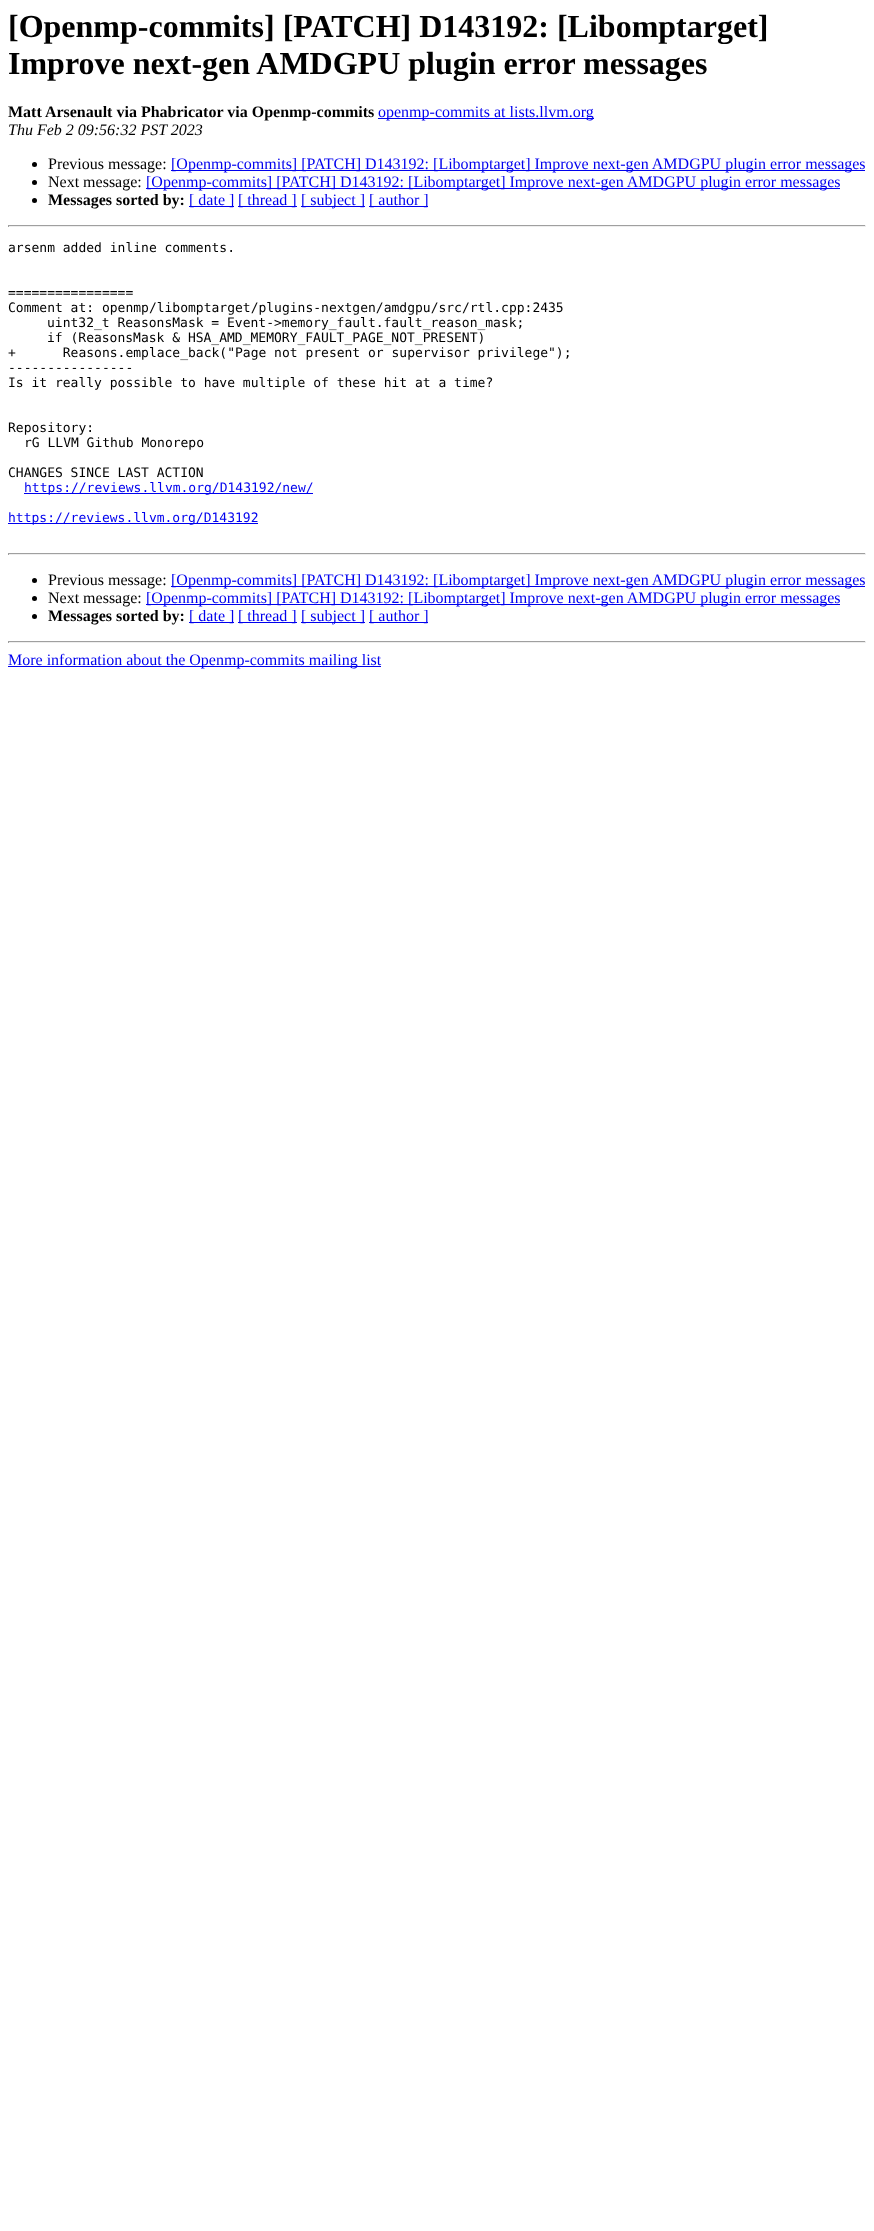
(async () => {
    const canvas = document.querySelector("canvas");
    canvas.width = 874;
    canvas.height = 2231;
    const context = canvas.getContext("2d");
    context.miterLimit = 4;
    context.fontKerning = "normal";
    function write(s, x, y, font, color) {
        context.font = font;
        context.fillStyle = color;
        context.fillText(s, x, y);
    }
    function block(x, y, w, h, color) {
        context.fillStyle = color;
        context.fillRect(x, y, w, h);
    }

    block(0, 0, 874, 2231, "rgb(255, 255, 255)");
    write("[Openmp-commits] [PATCH] D143192: [Libomptarget]", 8, 37, "bold 32px Liberation Serif", "rgb(0, 0, 0)");
    write("Improve next-gen AMDGPU plugin error messages", 8, 74, "bold 32px Liberation Serif", "rgb(0, 0, 0)");
    write("Matt Arsenault via Phabricator via Openmp-commits", 8, 117, "bold 16px Liberation Serif", "rgb(0, 0, 0)");
    block(378, 118, 216, 1, "rgb(0, 0, 238)");
    write("openmp-commits at lists.llvm.org", 378, 117, "16px Liberation Serif", "rgb(0, 0, 238)");
    write("Thu Feb 2 09:56:32 PST 2023", 8, 135, "italic 16px Liberation Serif", "rgb(0, 0, 0)");
    context.beginPath();
    context.arc(34.5, 164.5, 2.5, 0, Math.PI * 2);
    context.fill();
    write("Previous message:", 48, 169, "16px Liberation Serif", "rgb(0, 0, 0)");
    block(171, 170, 694, 1, "rgb(0, 0, 238)");
    write("[Openmp-commits] [PATCH] D143192: [Libomptarget] Improve next-gen AMDGPU plugin error messages", 171, 169, "16px Liberation Serif", "rgb(0, 0, 238)");
    context.fillStyle = "rgb(0, 0, 0)";
    context.beginPath();
    context.arc(34.5, 182.5, 2.5, 0, Math.PI * 2);
    context.fill();
    write("Next message:", 48, 187, "16px Liberation Serif", "rgb(0, 0, 0)");
    block(146, 188, 694, 1, "rgb(0, 0, 238)");
    write("[Openmp-commits] [PATCH] D143192: [Libomptarget] Improve next-gen AMDGPU plugin error messages", 146, 187, "16px Liberation Serif", "rgb(0, 0, 238)");
    context.fillStyle = "rgb(0, 0, 0)";
    context.beginPath();
    context.arc(34.5, 200.5, 2.5, 0, Math.PI * 2);
    context.fill();
    write("Messages sorted by:", 48, 205, "bold 16px Liberation Serif", "rgb(0, 0, 0)");
    block(189, 206, 45, 1, "rgb(0, 0, 238)");
    write("[ date ]", 189, 205, "16px Liberation Serif", "rgb(0, 0, 238)");
    block(238, 206, 59, 1, "rgb(0, 0, 238)");
    write("[ thread ]", 238, 205, "16px Liberation Serif", "rgb(0, 0, 238)");
    block(301, 206, 64, 1, "rgb(0, 0, 238)");
    write("[ subject ]", 301, 205, "16px Liberation Serif", "rgb(0, 0, 238)");
    block(369, 206, 59, 1, "rgb(0, 0, 238)");
    write("[ author ]", 369, 205, "16px Liberation Serif", "rgb(0, 0, 238)");
    block(8, 225, 858, 1, "rgb(159, 159, 159)");
    block(865, 225, 1, 2, "rgb(238, 238, 238)");
    block(8, 226, 858, 1, "rgb(238, 238, 238)");
    block(8, 225, 1, 2, "rgb(159, 159, 159)");
    write("arsenm added inline comments.", 8, 252, "13px DejaVu Sans Mono", "rgb(0, 0, 0)");
    write("================", 8, 297, "13px DejaVu Sans Mono", "rgb(0, 0, 0)");
    write("Comment at: openmp/libomptarget/plugins-nextgen/amdgpu/src/rtl.cpp:2435", 8, 312, "13px DejaVu Sans Mono", "rgb(0, 0, 0)");
    write("uint32_t ReasonsMask = Event->memory_fault.fault_reason_mask;", 47, 327, "13px DejaVu Sans Mono", "rgb(0, 0, 0)");
    write("if (ReasonsMask & HSA_AMD_MEMORY_FAULT_PAGE_NOT_PRESENT)", 47, 342, "13px DejaVu Sans Mono", "rgb(0, 0, 0)");
    write("+      Reasons.emplace_back(\"Page not present or supervisor privilege\");", 8, 357, "13px DejaVu Sans Mono", "rgb(0, 0, 0)");
    write("----------------", 8, 372, "13px DejaVu Sans Mono", "rgb(0, 0, 0)");
    write("Is it really possible to have multiple of these hit at a time?", 8, 387, "13px DejaVu Sans Mono", "rgb(0, 0, 0)");
    write("Repository:", 8, 432, "13px DejaVu Sans Mono", "rgb(0, 0, 0)");
    write("rG LLVM Github Monorepo", 24, 447, "13px DejaVu Sans Mono", "rgb(0, 0, 0)");
    write("CHANGES SINCE LAST ACTION", 8, 477, "13px DejaVu Sans Mono", "rgb(0, 0, 0)");
    block(24, 493, 289, 1, "rgb(0, 0, 238)");
    write("https://reviews.llvm.org/D143192/new/", 24, 492, "13px DejaVu Sans Mono", "rgb(0, 0, 238)");
    block(8, 523, 250, 1, "rgb(0, 0, 238)");
    write("https://reviews.llvm.org/D143192", 8, 522, "13px DejaVu Sans Mono", "rgb(0, 0, 238)");
    block(8, 553, 858, 1, "rgb(159, 159, 159)");
    block(865, 553, 1, 2, "rgb(238, 238, 238)");
    block(8, 554, 858, 1, "rgb(238, 238, 238)");
    block(8, 553, 1, 2, "rgb(159, 159, 159)");
    context.fillStyle = "rgb(0, 0, 0)";
    context.beginPath();
    context.arc(34.5, 580.5, 2.5, 0, Math.PI * 2);
    context.fill();
    write("Previous message:", 48, 585, "16px Liberation Serif", "rgb(0, 0, 0)");
    block(171, 586, 694, 1, "rgb(0, 0, 238)");
    write("[Openmp-commits] [PATCH] D143192: [Libomptarget] Improve next-gen AMDGPU plugin error messages", 171, 585, "16px Liberation Serif", "rgb(0, 0, 238)");
    context.fillStyle = "rgb(0, 0, 0)";
    context.beginPath();
    context.arc(34.5, 598.5, 2.5, 0, Math.PI * 2);
    context.fill();
    write("Next message:", 48, 603, "16px Liberation Serif", "rgb(0, 0, 0)");
    block(146, 604, 694, 1, "rgb(0, 0, 238)");
    write("[Openmp-commits] [PATCH] D143192: [Libomptarget] Improve next-gen AMDGPU plugin error messages", 146, 603, "16px Liberation Serif", "rgb(0, 0, 238)");
    context.fillStyle = "rgb(0, 0, 0)";
    context.beginPath();
    context.arc(34.5, 616.5, 2.5, 0, Math.PI * 2);
    context.fill();
    write("Messages sorted by:", 48, 621, "bold 16px Liberation Serif", "rgb(0, 0, 0)");
    block(189, 622, 45, 1, "rgb(0, 0, 238)");
    write("[ date ]", 189, 621, "16px Liberation Serif", "rgb(0, 0, 238)");
    block(238, 622, 59, 1, "rgb(0, 0, 238)");
    write("[ thread ]", 238, 621, "16px Liberation Serif", "rgb(0, 0, 238)");
    block(301, 622, 64, 1, "rgb(0, 0, 238)");
    write("[ subject ]", 301, 621, "16px Liberation Serif", "rgb(0, 0, 238)");
    block(369, 622, 59, 1, "rgb(0, 0, 238)");
    write("[ author ]", 369, 621, "16px Liberation Serif", "rgb(0, 0, 238)");
    block(8, 641, 858, 1, "rgb(159, 159, 159)");
    block(865, 641, 1, 2, "rgb(238, 238, 238)");
    block(8, 642, 858, 1, "rgb(238, 238, 238)");
    block(8, 641, 1, 2, "rgb(159, 159, 159)");
    block(8, 666, 373, 1, "rgb(0, 0, 238)");
    write("More information about the Openmp-commits mailing list", 8, 665, "16px Liberation Serif", "rgb(0, 0, 238)");
})();
